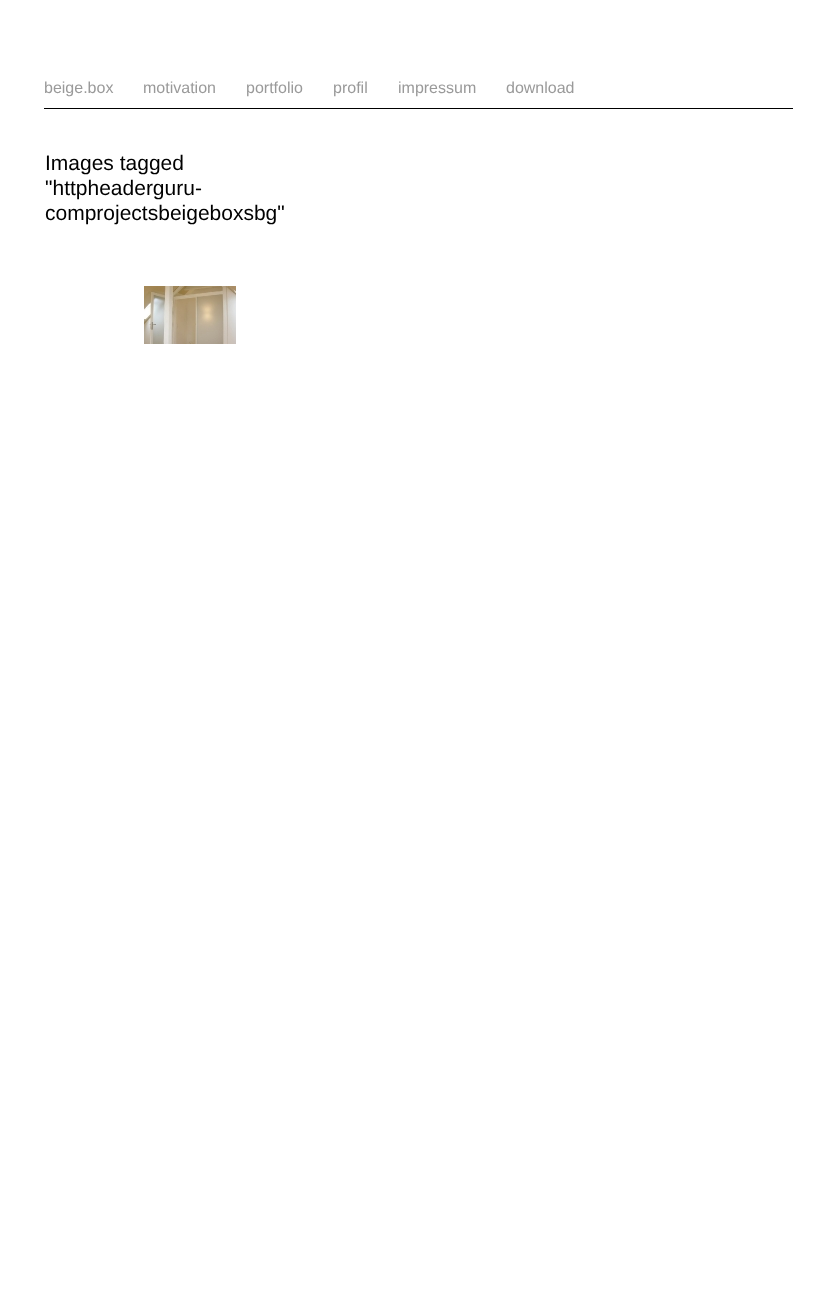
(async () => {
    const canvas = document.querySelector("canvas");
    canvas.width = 837;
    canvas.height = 1305;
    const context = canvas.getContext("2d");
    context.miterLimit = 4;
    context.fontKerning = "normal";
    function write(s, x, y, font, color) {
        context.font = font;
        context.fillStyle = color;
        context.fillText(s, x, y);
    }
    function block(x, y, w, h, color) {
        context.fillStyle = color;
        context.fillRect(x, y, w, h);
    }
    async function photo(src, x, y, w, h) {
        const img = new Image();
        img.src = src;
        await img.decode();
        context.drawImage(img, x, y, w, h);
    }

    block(0, 0, 837, 1305, "rgb(255, 255, 255)");
    block(44, 108, 749, 1, "rgb(0, 0, 0)");
    write("beige.box", 44, 93, "16px Liberation Sans", "rgb(154, 154, 154)");
    write("motivation", 143, 93, "16px Liberation Sans", "rgb(154, 154, 154)");
    write("portfolio", 246, 93, "16px Liberation Sans", "rgb(154, 154, 154)");
    write("profil", 333, 93, "16px Liberation Sans", "rgb(154, 154, 154)");
    write("impressum", 398, 93, "16px Liberation Sans", "rgb(154, 154, 154)");
    write("download", 506, 93, "16px Liberation Sans", "rgb(154, 154, 154)");
    write("Images tagged", 45, 170, "21px Liberation Sans", "rgb(0, 0, 0)");
    write("\"httpheaderguru-", 45, 195, "21px Liberation Sans", "rgb(0, 0, 0)");
    write("comprojectsbeigeboxsbg\"", 45, 220, "21px Liberation Sans", "rgb(0, 0, 0)");
    await photo("media/1.png", 144, 286, 92, 58);
})();
